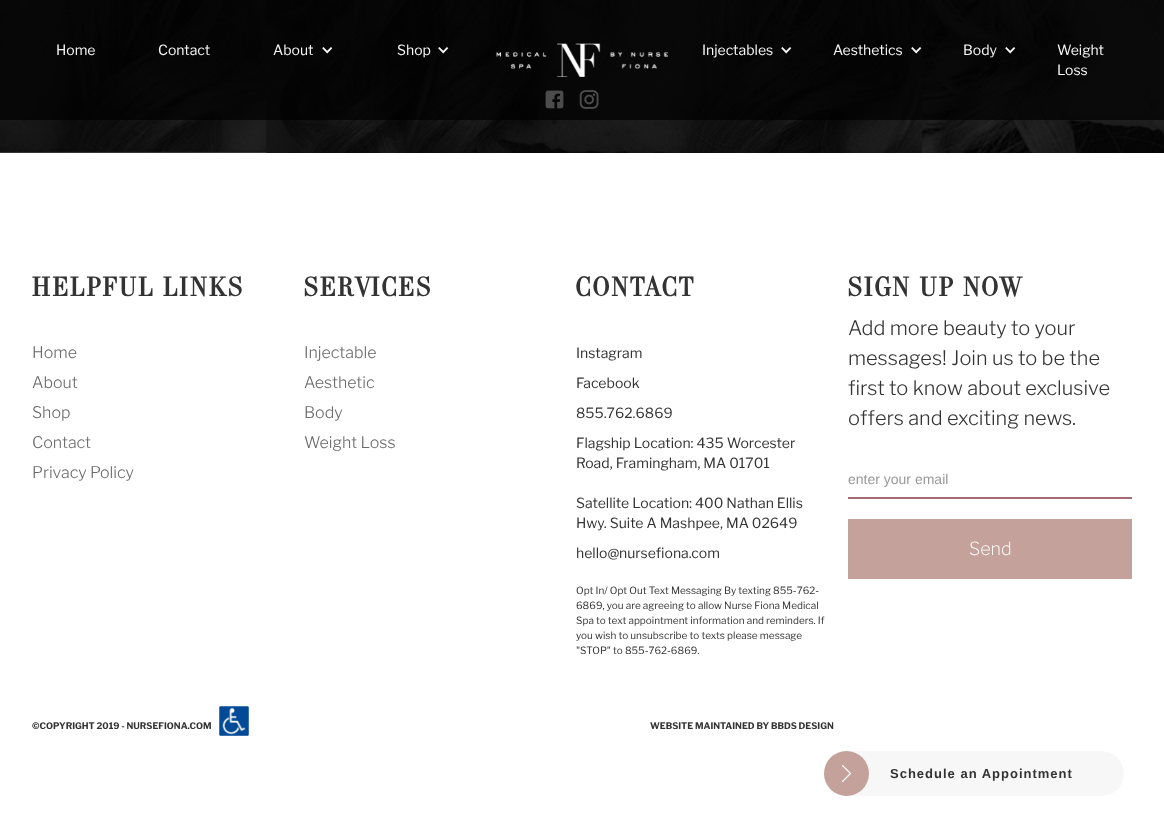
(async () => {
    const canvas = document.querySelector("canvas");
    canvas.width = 1164;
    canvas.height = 836;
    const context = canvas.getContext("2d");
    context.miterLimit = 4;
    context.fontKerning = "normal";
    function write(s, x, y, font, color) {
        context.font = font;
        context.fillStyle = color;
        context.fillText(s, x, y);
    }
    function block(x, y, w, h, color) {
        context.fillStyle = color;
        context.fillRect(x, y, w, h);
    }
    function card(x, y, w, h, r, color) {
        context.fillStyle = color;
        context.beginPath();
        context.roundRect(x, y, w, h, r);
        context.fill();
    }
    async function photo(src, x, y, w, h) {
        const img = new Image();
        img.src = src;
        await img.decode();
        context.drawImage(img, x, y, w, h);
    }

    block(0, 0, 1164, 836, "rgb(255, 255, 255)");
    await photo("media/1.png", 0, 0, 1164, 153);
    await photo("media/2.png", 545, 90, 19, 19);
    await photo("media/3.png", 579, 90, 20, 19);
    block(0, 0, 1164, 120, "rgba(0, 0, 0, 0.7)");
    write("Home", 56, 55, "14px Libre Franklin", "rgb(247, 247, 247)");
    write("Contact", 158, 55, "14px Libre Franklin", "rgb(247, 247, 247)");
    write("About", 273, 55, "14px Libre Franklin", "rgb(247, 247, 247)");
    await photo("media/4.png", 322, 47, 11, 7);
    write("Shop", 397, 55, "14px Libre Franklin", "rgb(247, 247, 247)");
    await photo("media/5.png", 438, 47, 11, 7);
    await photo("media/6.png", 496, 43, 172, 34);
    write("Injectables", 702, 55, "14px Libre Franklin", "rgb(247, 247, 247)");
    await photo("media/7.png", 781, 47, 11, 7);
    write("Aesthetics", 833, 55, "14px Libre Franklin", "rgb(247, 247, 247)");
    await photo("media/8.png", 911, 47, 11, 7);
    write("Body", 963, 55, "14px Libre Franklin", "rgb(247, 247, 247)");
    await photo("media/9.png", 1005, 47, 11, 7);
    write("Weight", 1057, 55, "14px Libre Franklin", "rgb(247, 247, 247)");
    write("Loss", 1057, 75, "14px Libre Franklin", "rgb(247, 247, 247)");
    context.letterSpacing = "3px";
    write("HELPFUL LINKS", 32, 296, "bold 30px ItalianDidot", "rgb(51, 51, 51)");
    context.letterSpacing = "0px";
    write("Home", 32, 358, "300 16px Libre Franklin", "rgb(105, 105, 105)");
    write("About", 32, 388, "300 16px Libre Franklin", "rgb(105, 105, 105)");
    write("Shop", 32, 418, "300 16px Libre Franklin", "rgb(105, 105, 105)");
    write("Contact", 32, 448, "300 16px Libre Franklin", "rgb(105, 105, 105)");
    write("Privacy Policy", 32, 478, "300 16px Libre Franklin", "rgb(105, 105, 105)");
    context.letterSpacing = "3px";
    write("SERVICES", 304, 296, "bold 30px ItalianDidot", "rgb(51, 51, 51)");
    context.letterSpacing = "0px";
    write("Injectable", 304, 358, "300 16px Libre Franklin", "rgb(105, 105, 105)");
    write("Aesthetic", 304, 388, "300 16px Libre Franklin", "rgb(105, 105, 105)");
    write("Body", 304, 418, "300 16px Libre Franklin", "rgb(105, 105, 105)");
    write("Weight Loss", 304, 448, "300 16px Libre Franklin", "rgb(105, 105, 105)");
    context.letterSpacing = "3px";
    write("CONTACT", 576, 296, "bold 30px ItalianDidot", "rgb(51, 51, 51)");
    context.letterSpacing = "0px";
    write("Instagram", 576, 358, "14px Libre Franklin", "rgb(51, 51, 51)");
    write("Facebook", 576, 388, "14px Libre Franklin", "rgb(51, 51, 51)");
    write("855.762.6869", 576, 418, "14px Libre Franklin", "rgb(51, 51, 51)");
    write("Flagship Location: 435 Worcester", 576, 448, "14px Libre Franklin", "rgb(51, 51, 51)");
    write("Road, Framingham, MA 01701", 576, 468, "14px Libre Franklin", "rgb(51, 51, 51)");
    write("Satellite Location: 400 Nathan Ellis", 576, 508, "14px Libre Franklin", "rgb(51, 51, 51)");
    write("Hwy. Suite A Mashpee, MA 02649", 576, 528, "14px Libre Franklin", "rgb(51, 51, 51)");
    write("hello@nursefiona.com", 576, 558, "14px Libre Franklin", "rgb(51, 51, 51)");
    write("Opt In/ Opt Out Text Messaging By texting 855-762-", 576, 594, "10px Libre Franklin", "rgb(51, 51, 51)");
    write("6869, you are agreeing to allow Nurse Fiona Medical", 576, 609, "10px Libre Franklin", "rgb(51, 51, 51)");
    write("Spa to text appointment information and reminders. If", 576, 624, "10px Libre Franklin", "rgb(51, 51, 51)");
    write("you wish to unsubscribe to texts please message", 576, 639, "10px Libre Franklin", "rgb(51, 51, 51)");
    write("\"STOP\" to 855-762-6869.", 576, 654, "10px Libre Franklin", "rgb(51, 51, 51)");
    context.letterSpacing = "3px";
    write("SIGN UP NOW", 848, 296, "bold 30px ItalianDidot", "rgb(51, 51, 51)");
    context.letterSpacing = "0px";
    write("Add more beauty to your", 848, 335, "300 20px Libre Franklin", "rgb(51, 51, 51)");
    write("messages! Join us to be the", 848, 365, "300 20px Libre Franklin", "rgb(51, 51, 51)");
    write("first to know about exclusive", 848, 395, "300 20px Libre Franklin", "rgb(51, 51, 51)");
    write("offers and exciting news.", 848, 425, "300 20px Libre Franklin", "rgb(51, 51, 51)");
    block(848, 497, 284, 2, "rgb(167, 106, 117)");
    write("enter your email", 848, 484, "14px Liberation Sans", "rgb(153, 153, 153)");
    block(848, 519, 284, 60, "rgb(196, 162, 155)");
    write("Send", 969, 555, "200 18px Libre Franklin", "rgb(255, 255, 255)");
    write("©COPYRIGHT 2019 - NURSEFIONA.COM", 32, 729, "bold 9px Libre Franklin", "rgb(51, 51, 51)");
    await photo("media/10.png", 219, 706, 30, 30);
    write("WEBSITE MAINTAINED BY BBDS DESIGN", 650, 729, "bold 9px Libre Franklin", "rgb(51, 51, 51)");
    card(824, 751, 300, 45, 22.5, "rgb(247, 247, 247)");
    context.fillStyle = "rgb(196, 162, 155)";
    context.beginPath();
    context.arc(846.5, 773.5, 22.5, 0, Math.PI * 2);
    context.fill();
    context.beginPath();
    context.moveTo(842.5, 765.5);
    context.lineTo(850.5, 773.5);
    context.lineTo(842.5, 781.5);
    context.strokeStyle = "rgb(255, 255, 255)";
    context.lineWidth = 1.1;
    context.lineCap = "round";
    context.lineJoin = "round";
    context.stroke();
    context.letterSpacing = "1px";
    write("Schedule an Appointment", 890, 778, "bold 13px Liberation Sans", "rgb(51, 51, 51)");
})();
